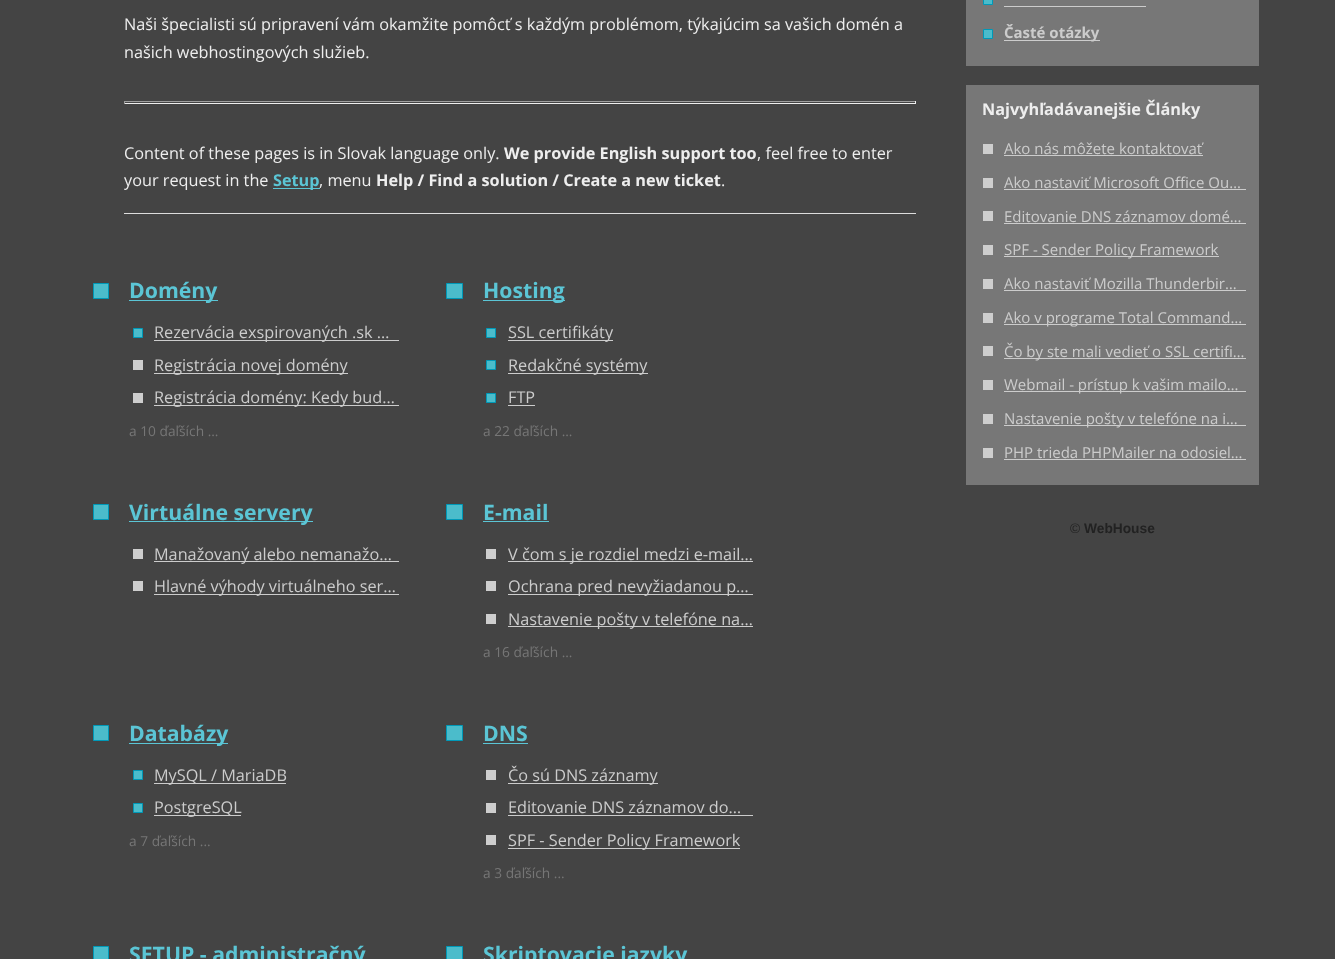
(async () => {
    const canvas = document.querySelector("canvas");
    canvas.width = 1335;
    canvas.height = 959;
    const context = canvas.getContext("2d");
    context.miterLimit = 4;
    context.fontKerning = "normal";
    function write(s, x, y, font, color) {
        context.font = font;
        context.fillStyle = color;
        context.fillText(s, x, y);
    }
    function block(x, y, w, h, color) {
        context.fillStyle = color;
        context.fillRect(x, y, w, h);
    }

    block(0, 0, 1335, 959, "rgb(68, 68, 68)");
    write("Naši špecialisti sú pripravení vám okamžite pomôcť s každým problémom, týkajúcim sa vašich domén a", 124, 30, "16.25px Open Sans", "rgb(238, 238, 238)");
    write("našich webhostingových služieb.", 124, 58, "16.25px Open Sans", "rgb(238, 238, 238)");
    block(124, 101, 792, 1, "rgb(159, 159, 159)");
    block(915, 101, 1, 3, "rgb(238, 238, 238)");
    block(124, 103, 792, 1, "rgb(238, 238, 238)");
    block(124, 101, 1, 3, "rgb(159, 159, 159)");
    write("Content of these pages is in Slovak language only.", 124, 159, "16.25px Open Sans", "rgb(238, 238, 238)");
    write("We provide English support too", 504, 159, "bold 16.25px Open Sans", "rgb(238, 238, 238)");
    write(", feel free to enter", 757, 159, "16.25px Open Sans", "rgb(238, 238, 238)");
    write("your request in the", 124, 186, "16.25px Open Sans", "rgb(238, 238, 238)");
    block(273, 188, 47, 1, "rgb(91, 197, 213)");
    write("Setup", 273, 186, "bold 16.25px Open Sans", "rgb(91, 197, 213)");
    write(", menu", 319, 186, "16.25px Open Sans", "rgb(238, 238, 238)");
    write("Help / Find a solution / Create a new ticket", 376, 186, "bold 16.25px Open Sans", "rgb(238, 238, 238)");
    write(".", 721, 186, "16.25px Open Sans", "rgb(238, 238, 238)");
    block(124, 213, 792, 1, "rgb(221, 221, 221)");
    context.fillStyle = "rgb(75, 188, 203)";
    context.beginPath();
    context.rect(93.5, 283.5, 15, 15);
    context.fill();
    context.strokeStyle = "rgb(0, 153, 184)";
    context.stroke();
    block(129, 300, 89, 1, "rgb(91, 197, 213)");
    write("Domény", 129, 298, "bold 21.25px Open Sans", "rgb(91, 197, 213)");
    context.fillStyle = "rgb(75, 188, 203)";
    context.beginPath();
    context.rect(133.5, 328.5, 9, 9);
    context.fill();
    context.stroke();
    block(154, 340, 245, 1, "rgb(204, 204, 204)");
    write("Rezervácia exspirovaných .sk …", 154, 338, "16.25px Open Sans", "rgb(204, 204, 204)");
    block(133, 360, 10, 10, "rgb(206, 206, 206)");
    block(154, 373, 194, 1, "rgb(204, 204, 204)");
    write("Registrácia novej domény", 154, 371, "16.25px Open Sans", "rgb(204, 204, 204)");
    block(133, 393, 10, 10, "rgb(206, 206, 206)");
    block(154, 405, 245, 1, "rgb(204, 204, 204)");
    write("Registrácia domény: Kedy bud…", 154, 403, "16.25px Open Sans", "rgb(204, 204, 204)");
    write("a 10 ďaľších ...", 129, 436, "13.75px Open Sans", "rgb(118, 118, 118)");
    context.fillStyle = "rgb(75, 188, 203)";
    context.beginPath();
    context.rect(446.5, 283.5, 16, 15);
    context.fill();
    context.stroke();
    block(483, 300, 82, 1, "rgb(91, 197, 213)");
    write("Hosting", 483, 298, "bold 21.25px Open Sans", "rgb(91, 197, 213)");
    context.fillStyle = "rgb(75, 188, 203)";
    context.beginPath();
    context.rect(486.5, 328.5, 9, 9);
    context.fill();
    context.stroke();
    block(508, 340, 105, 1, "rgb(204, 204, 204)");
    write("SSL certifikáty", 508, 338, "16.25px Open Sans", "rgb(204, 204, 204)");
    context.fillStyle = "rgb(75, 188, 203)";
    context.beginPath();
    context.rect(486.5, 360.5, 9, 9);
    context.fill();
    context.stroke();
    block(508, 373, 140, 1, "rgb(204, 204, 204)");
    write("Redakčné systémy", 508, 371, "16.25px Open Sans", "rgb(204, 204, 204)");
    context.fillStyle = "rgb(75, 188, 203)";
    context.beginPath();
    context.rect(486.5, 393.5, 9, 9);
    context.fill();
    context.stroke();
    write("FTP", 508, 403, "16.25px Open Sans", "rgb(204, 204, 204)");
    block(508, 405, 27, 1, "rgb(204, 204, 204)");
    write("a 22 ďaľších ...", 483, 436, "13.75px Open Sans", "rgb(118, 118, 118)");
    context.fillStyle = "rgb(75, 188, 203)";
    context.beginPath();
    context.rect(93.5, 504.5, 15, 15);
    context.fill();
    context.stroke();
    block(129, 521, 184, 1, "rgb(91, 197, 213)");
    write("Virtuálne servery", 129, 520, "bold 21.25px Open Sans", "rgb(91, 197, 213)");
    block(133, 549, 10, 10, "rgb(206, 206, 206)");
    block(154, 561, 245, 1, "rgb(204, 204, 204)");
    write("Manažovaný alebo nemanažo…", 154, 560, "16.25px Open Sans", "rgb(204, 204, 204)");
    block(133, 581, 10, 10, "rgb(206, 206, 206)");
    block(154, 594, 245, 1, "rgb(204, 204, 204)");
    write("Hlavné výhody virtuálneho ser…", 154, 592, "16.25px Open Sans", "rgb(204, 204, 204)");
    context.fillStyle = "rgb(75, 188, 203)";
    context.beginPath();
    context.rect(446.5, 504.5, 16, 15);
    context.fill();
    context.stroke();
    write("E-mail", 483, 520, "bold 21.25px Open Sans", "rgb(91, 197, 213)");
    block(483, 521, 66, 1, "rgb(91, 197, 213)");
    block(486, 549, 10, 10, "rgb(206, 206, 206)");
    block(508, 561, 245, 1, "rgb(204, 204, 204)");
    write("V čom s je rozdiel medzi e-mail…", 508, 560, "16.25px Open Sans", "rgb(204, 204, 204)");
    block(486, 581, 10, 10, "rgb(206, 206, 206)");
    block(508, 594, 245, 1, "rgb(204, 204, 204)");
    write("Ochrana pred nevyžiadanou p…", 508, 592, "16.25px Open Sans", "rgb(204, 204, 204)");
    block(486, 614, 10, 10, "rgb(206, 206, 206)");
    block(508, 626, 245, 1, "rgb(204, 204, 204)");
    write("Nastavenie pošty v telefóne na…", 508, 625, "16.25px Open Sans", "rgb(204, 204, 204)");
    write("a 16 ďaľších ...", 483, 657, "13.75px Open Sans", "rgb(118, 118, 118)");
    context.fillStyle = "rgb(75, 188, 203)";
    context.beginPath();
    context.rect(93.5, 725.5, 15, 15);
    context.fill();
    context.stroke();
    block(129, 743, 99, 1, "rgb(91, 197, 213)");
    write("Databázy", 129, 741, "bold 21.25px Open Sans", "rgb(91, 197, 213)");
    context.fillStyle = "rgb(75, 188, 203)";
    context.beginPath();
    context.rect(133.5, 770.5, 9, 9);
    context.fill();
    context.stroke();
    block(154, 783, 132, 1, "rgb(204, 204, 204)");
    write("MySQL / MariaDB", 154, 781, "16.25px Open Sans", "rgb(204, 204, 204)");
    context.fillStyle = "rgb(75, 188, 203)";
    context.beginPath();
    context.rect(133.5, 803.5, 9, 9);
    context.fill();
    context.stroke();
    block(154, 815, 87, 1, "rgb(204, 204, 204)");
    write("PostgreSQL", 154, 813, "16.25px Open Sans", "rgb(204, 204, 204)");
    write("a 7 ďaľších ...", 129, 846, "13.75px Open Sans", "rgb(118, 118, 118)");
    context.fillStyle = "rgb(75, 188, 203)";
    context.beginPath();
    context.rect(446.5, 725.5, 16, 15);
    context.fill();
    context.stroke();
    write("DNS", 483, 741, "bold 21.25px Open Sans", "rgb(91, 197, 213)");
    block(483, 743, 45, 1, "rgb(91, 197, 213)");
    block(486, 770, 10, 10, "rgb(206, 206, 206)");
    block(508, 783, 150, 1, "rgb(204, 204, 204)");
    write("Čo sú DNS záznamy", 508, 781, "16.25px Open Sans", "rgb(204, 204, 204)");
    block(486, 803, 10, 10, "rgb(206, 206, 206)");
    write("Editovanie DNS záznamov do…", 508, 813, "16.25px Open Sans", "rgb(204, 204, 204)");
    block(508, 815, 245, 1, "rgb(204, 204, 204)");
    block(486, 835, 10, 10, "rgb(206, 206, 206)");
    block(508, 848, 232, 1, "rgb(204, 204, 204)");
    write("SPF - Sender Policy Framework", 508, 846, "16.25px Open Sans", "rgb(204, 204, 204)");
    write("a 3 ďaľších ...", 483, 878, "13.75px Open Sans", "rgb(118, 118, 118)");
    context.fillStyle = "rgb(75, 188, 203)";
    context.beginPath();
    context.rect(93.5, 946.5, 15, 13);
    context.fill();
    context.stroke();
    write("SETUP - administračný", 129, 962, "bold 21.25px Open Sans", "rgb(91, 197, 213)");
    context.fillStyle = "rgb(75, 188, 203)";
    context.beginPath();
    context.rect(446.5, 946.5, 16, 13);
    context.fill();
    context.stroke();
    write("Skriptovacie jazyky", 483, 962, "bold 21.25px Open Sans", "rgb(91, 197, 213)");
    block(966, 0, 293, 66, "rgb(119, 119, 119)");
    context.fillStyle = "rgb(75, 188, 203)";
    context.beginPath();
    context.rect(983.5, -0.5, 9, 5);
    context.fill();
    context.stroke();
    block(1004, 6, 142, 1, "rgb(204, 204, 204)");
    context.fillStyle = "rgb(75, 188, 203)";
    context.beginPath();
    context.rect(983.5, 29.5, 9, 9);
    context.fill();
    context.stroke();
    block(1004, 40, 96, 1, "rgb(204, 204, 204)");
    write("Časté otázky", 1004, 38, "bold 15px Open Sans", "rgb(204, 204, 204)");
    block(966, 85, 293, 400, "rgb(119, 119, 119)");
    write("Najvyhľadávanejšie Články", 982, 115, "bold 16.25px Open Sans", "rgb(238, 238, 238)");
    block(983, 144, 10, 10, "rgb(206, 206, 206)");
    write("Ako nás môžete kontaktovať", 1004, 154, "15px Open Sans", "rgb(204, 204, 204)");
    block(1004, 155, 199, 1, "rgb(204, 204, 204)");
    block(983, 178, 10, 10, "rgb(206, 206, 206)");
    write("Ako nastaviť Microsoft Office Ou…", 1004, 188, "15px Open Sans", "rgb(204, 204, 204)");
    block(1004, 189, 242, 1, "rgb(204, 204, 204)");
    block(983, 211, 10, 10, "rgb(206, 206, 206)");
    write("Editovanie DNS záznamov domé…", 1004, 222, "15px Open Sans", "rgb(204, 204, 204)");
    block(1004, 223, 242, 1, "rgb(204, 204, 204)");
    block(983, 245, 10, 10, "rgb(206, 206, 206)");
    block(1004, 256, 215, 1, "rgb(204, 204, 204)");
    write("SPF - Sender Policy Framework", 1004, 255, "15px Open Sans", "rgb(204, 204, 204)");
    block(983, 279, 10, 10, "rgb(206, 206, 206)");
    write("Ako nastaviť Mozilla Thunderbir…", 1004, 289, "15px Open Sans", "rgb(204, 204, 204)");
    block(1004, 290, 242, 1, "rgb(204, 204, 204)");
    block(983, 313, 10, 10, "rgb(206, 206, 206)");
    block(1004, 324, 242, 1, "rgb(204, 204, 204)");
    write("Ako v programe Total Command…", 1004, 323, "15px Open Sans", "rgb(204, 204, 204)");
    block(983, 346, 10, 10, "rgb(206, 206, 206)");
    block(1004, 358, 242, 1, "rgb(204, 204, 204)");
    write("Čo by ste mali vedieť o SSL certifi…", 1004, 357, "15px Open Sans", "rgb(204, 204, 204)");
    block(983, 380, 10, 10, "rgb(206, 206, 206)");
    block(1004, 391, 242, 1, "rgb(204, 204, 204)");
    write("Webmail - prístup k vašim mailo…", 1004, 390, "15px Open Sans", "rgb(204, 204, 204)");
    block(983, 414, 10, 10, "rgb(206, 206, 206)");
    block(1004, 425, 242, 1, "rgb(204, 204, 204)");
    write("Nastavenie pošty v telefóne na i…", 1004, 424, "15px Open Sans", "rgb(204, 204, 204)");
    block(983, 448, 10, 10, "rgb(206, 206, 206)");
    write("PHP trieda PHPMailer na odosiel…", 1004, 458, "15px Open Sans", "rgb(204, 204, 204)");
    block(1004, 459, 242, 1, "rgb(204, 204, 204)");
    write("©", 1070, 533, "13.75px Liberation Sans", "rgb(34, 34, 34)");
    write("WebHouse", 1084, 533, "bold 13.75px Liberation Sans", "rgb(34, 34, 34)");
})();
